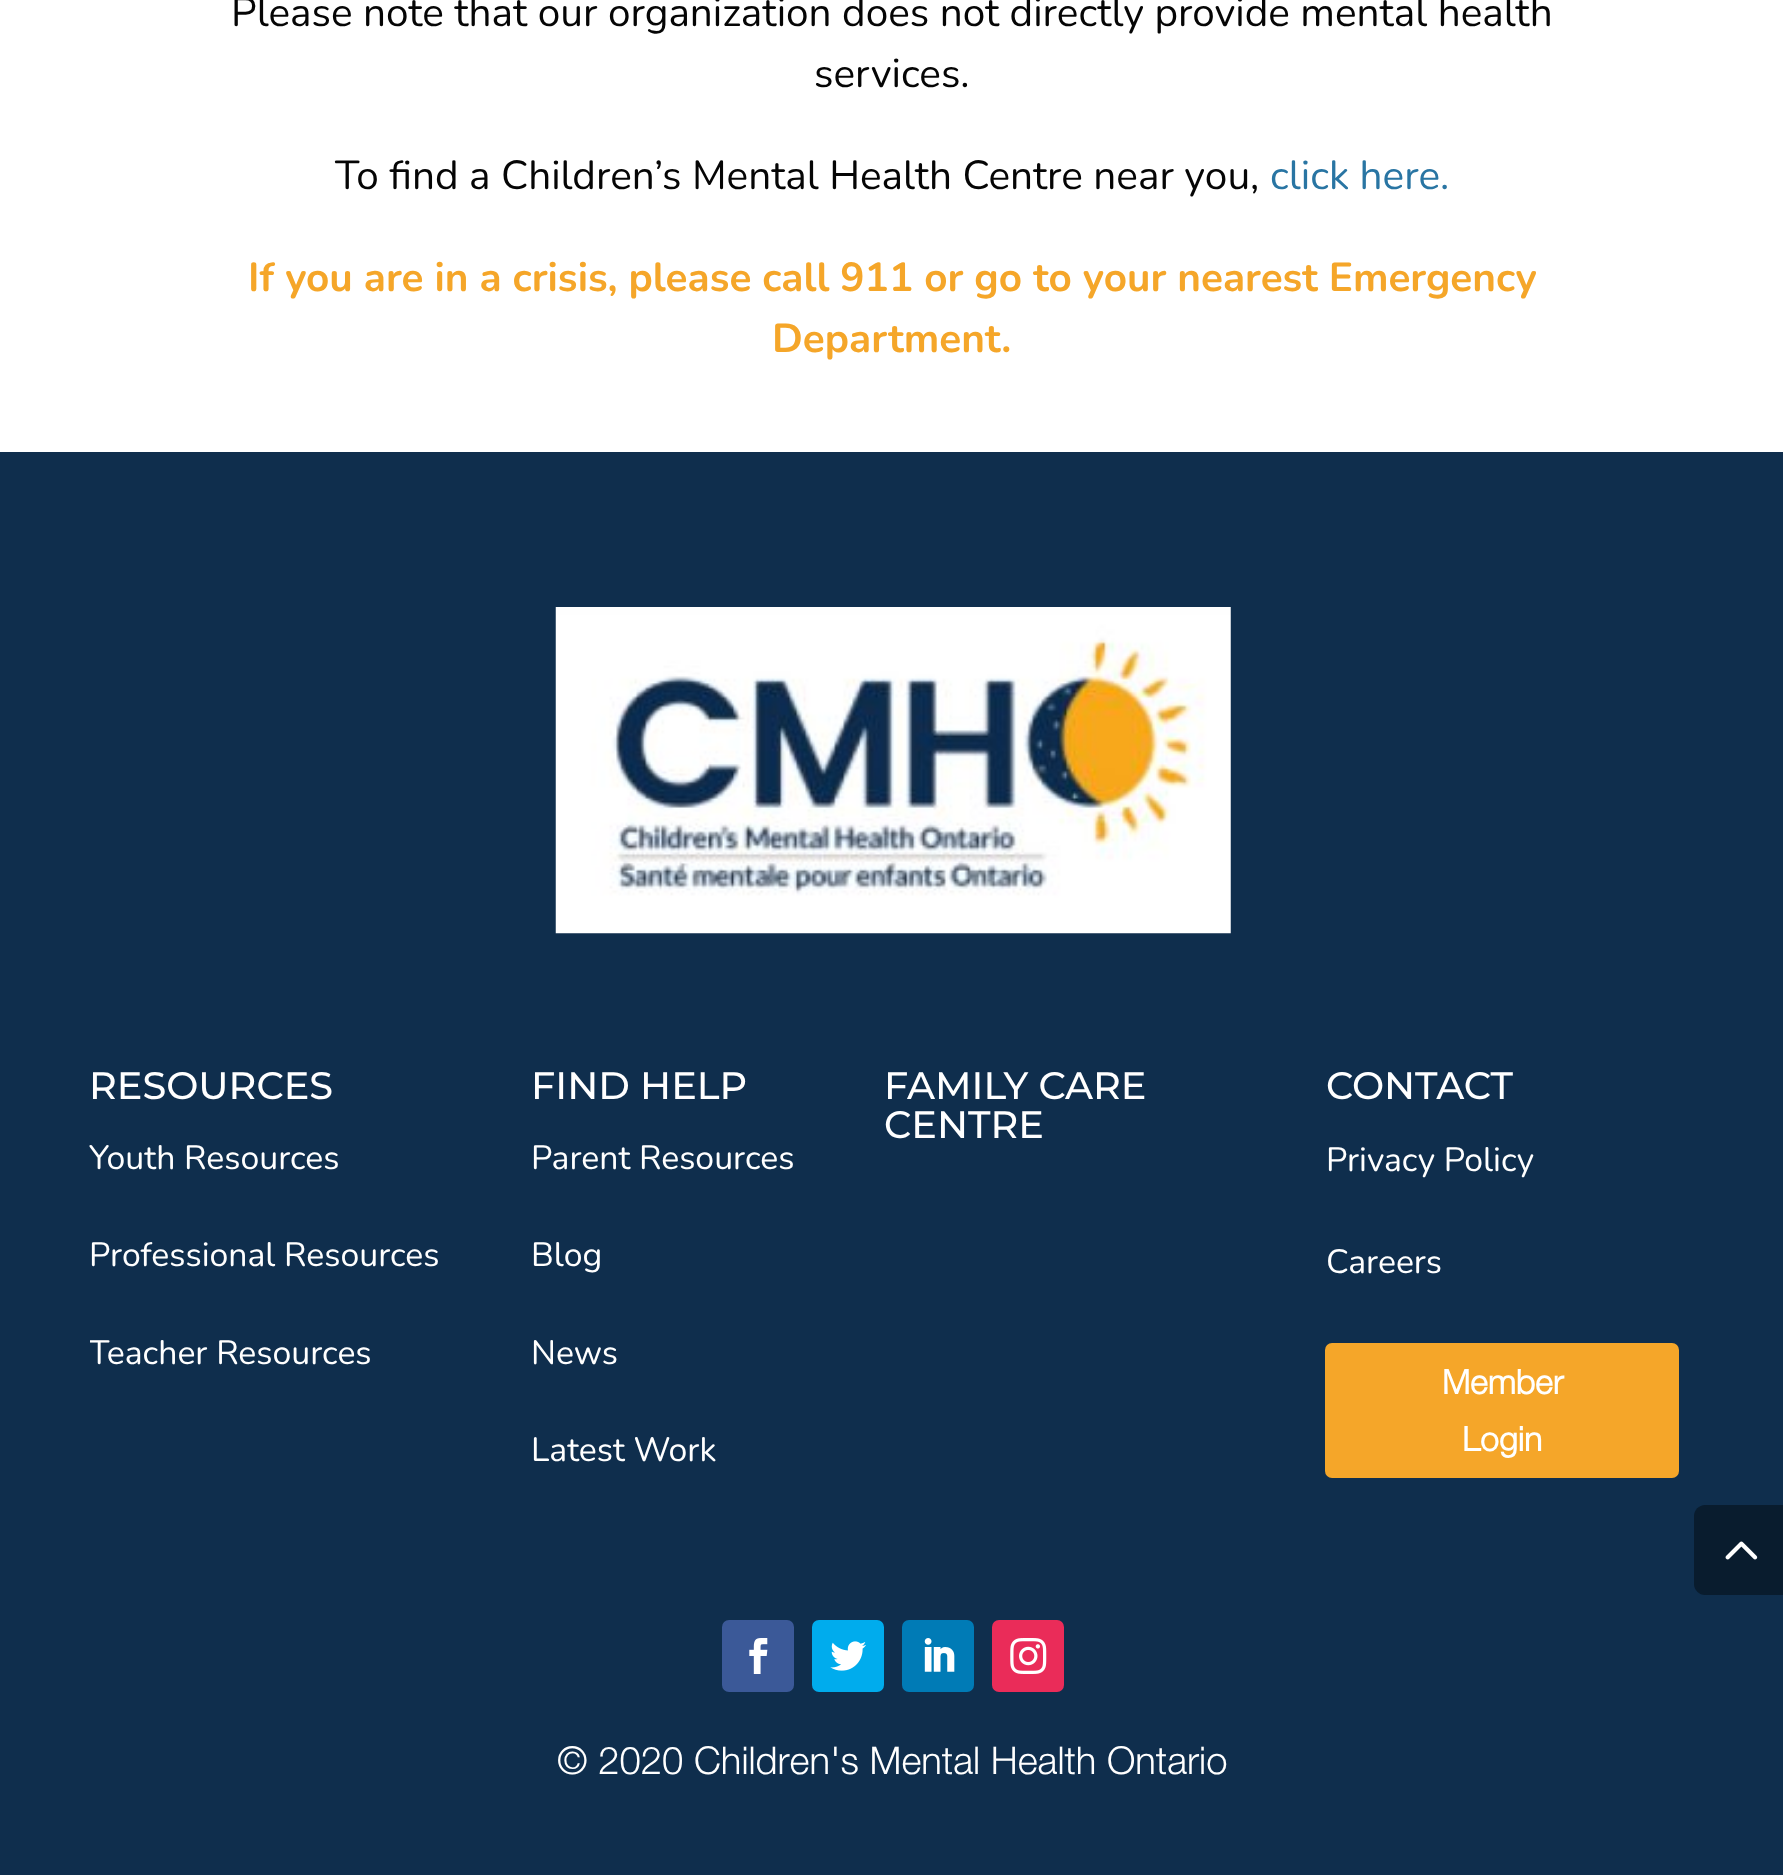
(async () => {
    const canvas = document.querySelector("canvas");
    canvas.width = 1783;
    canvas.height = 1875;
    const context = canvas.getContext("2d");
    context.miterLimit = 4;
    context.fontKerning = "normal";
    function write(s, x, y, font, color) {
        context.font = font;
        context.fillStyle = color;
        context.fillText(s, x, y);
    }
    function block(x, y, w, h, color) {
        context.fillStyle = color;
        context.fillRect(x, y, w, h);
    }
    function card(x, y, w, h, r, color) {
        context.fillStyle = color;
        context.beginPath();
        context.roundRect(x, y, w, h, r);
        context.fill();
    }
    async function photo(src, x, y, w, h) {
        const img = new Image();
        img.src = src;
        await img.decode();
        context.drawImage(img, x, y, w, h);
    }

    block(0, 0, 1783, 1875, "rgb(255, 255, 255)");
    write("Please note that our organization does not directly provide mental health", 231, 26, "40.5px Nunito", "rgb(5, 5, 5)");
    write("services.", 814, 87, "40.5px Nunito", "rgb(5, 5, 5)");
    write("To find a Children’s Mental Health Centre near you,", 335, 189, "40.5px Nunito", "rgb(5, 5, 5)");
    write("click here.", 1270, 189, "40.5px Nunito", "rgb(41, 117, 163)");
    write("If you are in a crisis, please call 911 or go to your nearest Emergency", 248, 291, "bold 40.5px Nunito", "rgb(245, 166, 41)");
    write("Department.", 772, 352, "bold 40.5px Nunito", "rgb(245, 166, 41)");
    block(0, 452, 1783, 1423, "rgb(15, 46, 77)");
    await photo("media/1.png", 555, 607, 676, 327);
    write("RESOURCES", 89, 1099, "500 38.25px Montserrat", "rgb(255, 255, 255)");
    write("Youth Resources", 89, 1169, "33.75px Nunito", "rgb(255, 255, 255)");
    write("Professional Resources", 89, 1266, "33.75px Nunito", "rgb(255, 255, 255)");
    context.save();
    context.beginPath();
    context.rect(90, 1001, 1604, 615);
    context.clip();
    write("Teacher Resources", 89, 1364, "33.75px Nunito", "rgb(255, 255, 255)");
    context.restore();
    write("FIND HELP", 531, 1099, "500 38.25px Montserrat", "rgb(255, 255, 255)");
    write("Parent Resources", 531, 1169, "33.75px Nunito", "rgb(255, 255, 255)");
    write("Blog", 531, 1266, "33.75px Nunito", "rgb(255, 255, 255)");
    write("News", 531, 1364, "33.75px Nunito", "rgb(255, 255, 255)");
    write("Latest Work", 531, 1461, "33.75px Nunito", "rgb(255, 255, 255)");
    write("FAMILY CARE", 884, 1099, "500 38.25px Montserrat", "rgb(255, 255, 255)");
    write("CENTRE", 884, 1138, "500 38.25px Montserrat", "rgb(255, 255, 255)");
    write("CONTACT", 1326, 1099, "500 38.25px Montserrat", "rgb(255, 255, 255)");
    write("Privacy Policy", 1326, 1171, "33.75px Nunito", "rgb(255, 255, 255)");
    write("Careers", 1326, 1273, "33.75px Nunito", "rgb(255, 255, 255)");
    card(1325, 1343, 354, 135, 7, "rgb(245, 166, 41)");
    write("Member", 1442, 1394, "bold 33.75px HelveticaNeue", "rgb(255, 255, 255)");
    write("Login", 1462, 1451, "bold 33.75px HelveticaNeue", "rgb(255, 255, 255)");
    card(722, 1620, 72, 72, 7, "rgb(59, 89, 152)");
    await photo("media/2.png", 749, 1638, 19, 36);
    card(812, 1620, 72, 72, 7, "rgb(0, 172, 237)");
    await photo("media/3.png", 830, 1641, 36, 30);
    card(902, 1620, 72, 72, 7, "rgb(0, 123, 182)");
    await photo("media/4.png", 924, 1638, 31, 34);
    card(992, 1620, 72, 72, 7, "rgb(234, 44, 89)");
    await photo("media/5.png", 1010, 1638, 37, 36);
    write("© 2020 Children's Mental Health Ontario", 557, 1774, "300 38.25px HelveticaNeue", "rgb(255, 255, 255)");
    context.fillStyle = "rgb(9, 28, 46)";
    context.beginPath();
    context.moveTo(1705, 1505);
    context.lineTo(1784, 1505);
    context.lineTo(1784, 1595);
    context.lineTo(1705, 1595);
    context.bezierCurveTo(1699, 1595, 1694, 1590, 1694, 1584);
    context.lineTo(1694, 1516);
    context.bezierCurveTo(1694, 1510, 1699, 1505, 1705, 1505);
    context.closePath();
    context.fill();
    await photo("media/6.png", 1725, 1541, 33, 19);
})();
